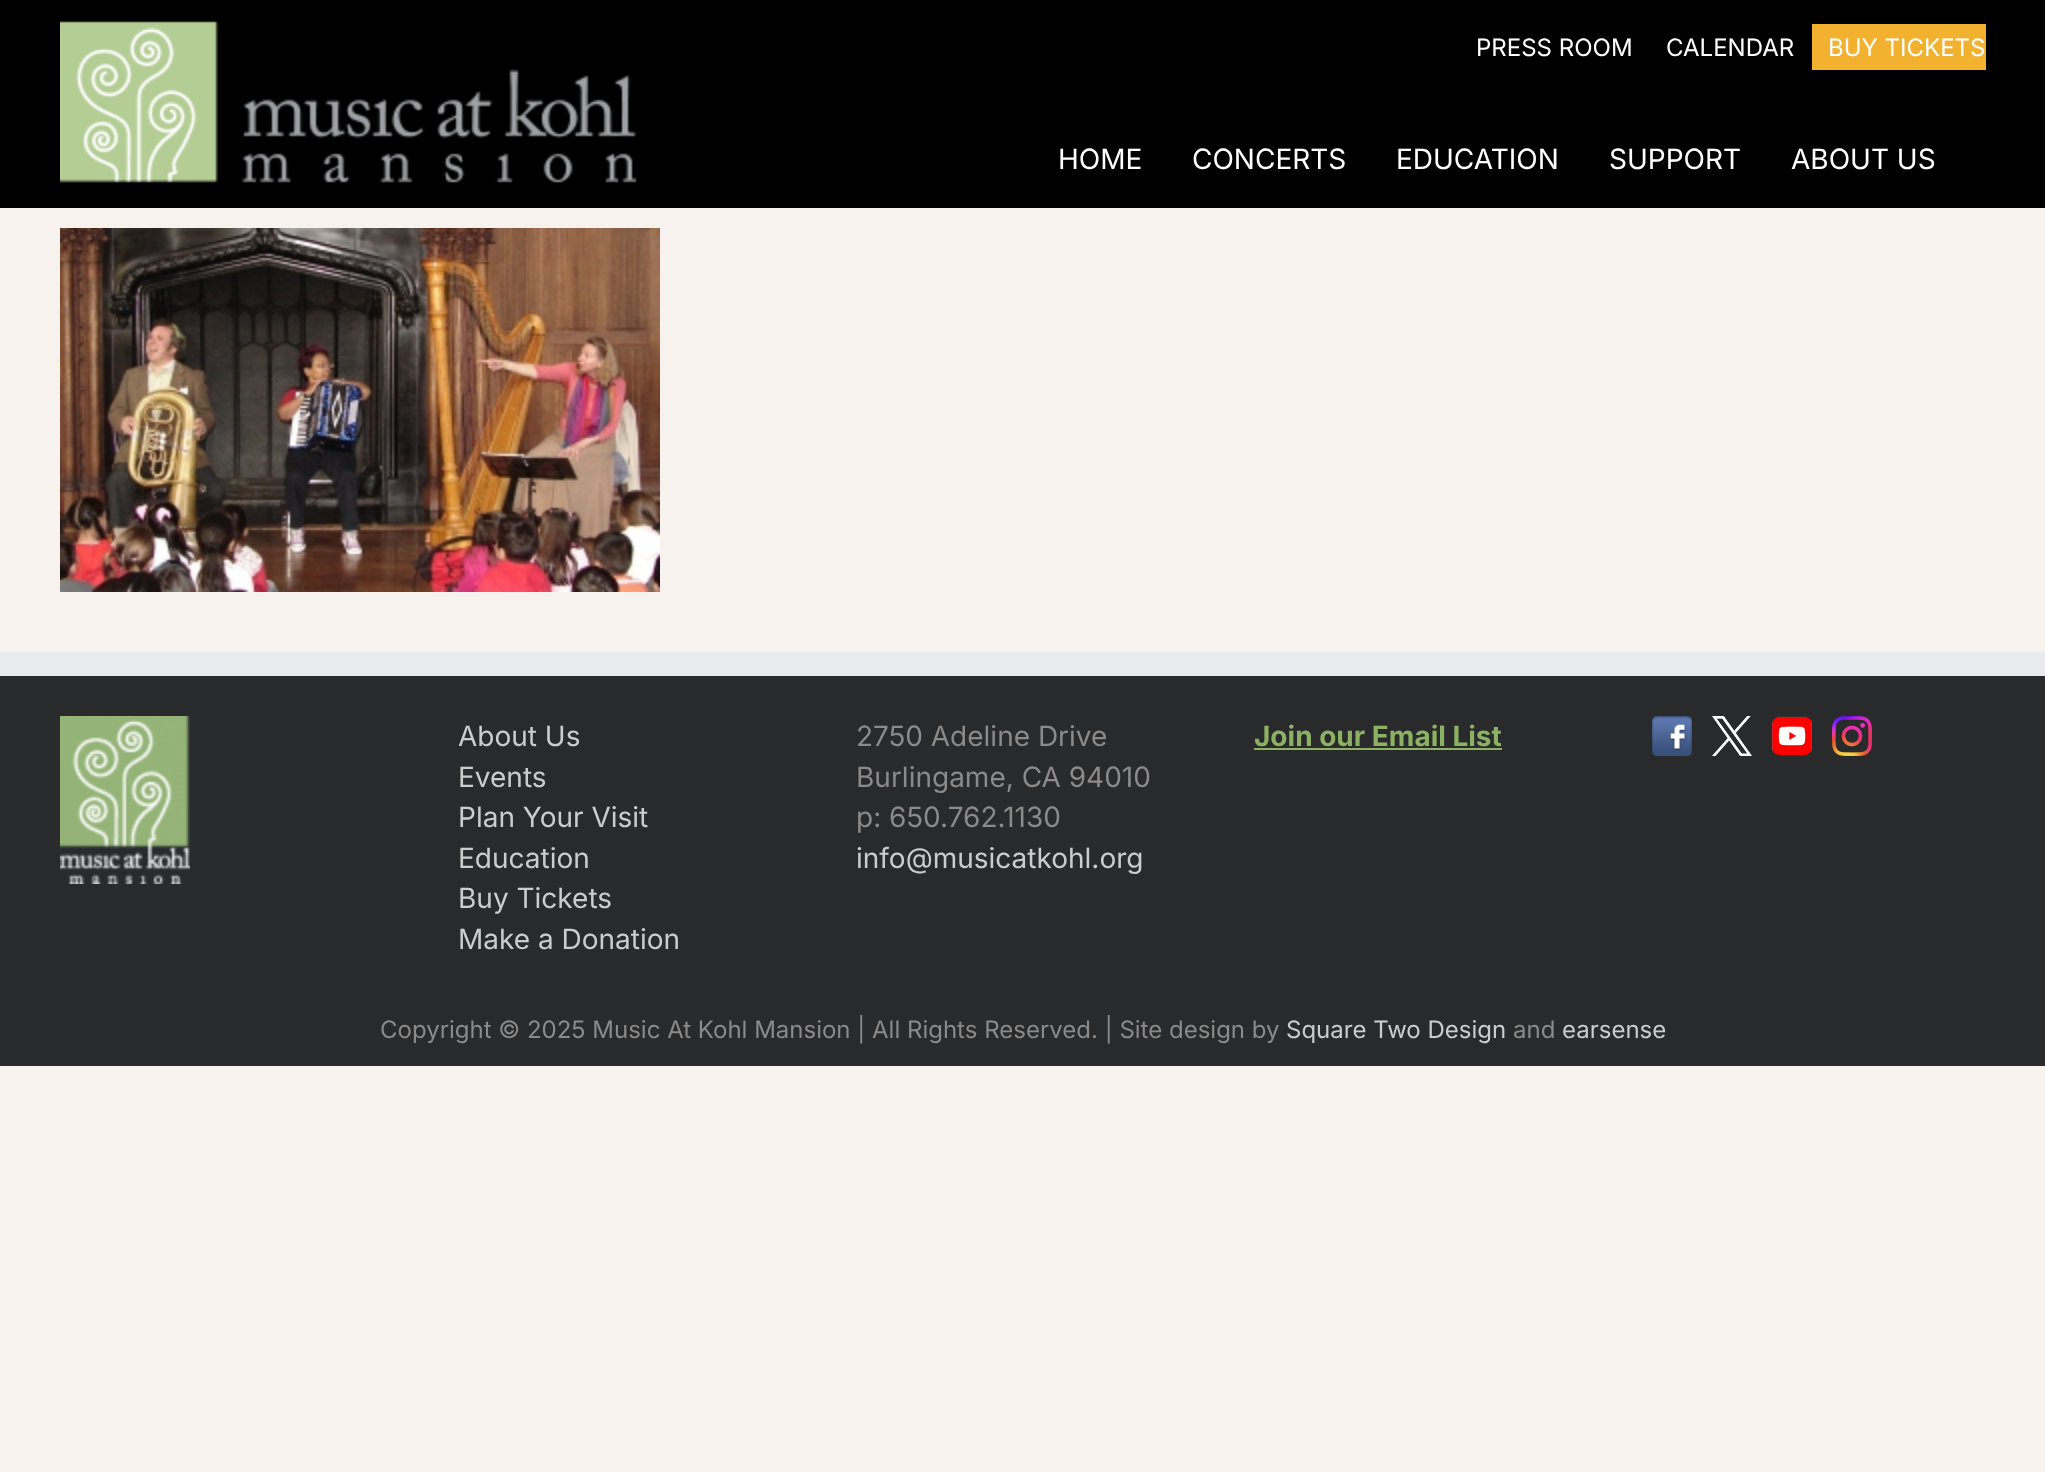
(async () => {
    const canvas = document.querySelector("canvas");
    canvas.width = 2045;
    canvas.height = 1472;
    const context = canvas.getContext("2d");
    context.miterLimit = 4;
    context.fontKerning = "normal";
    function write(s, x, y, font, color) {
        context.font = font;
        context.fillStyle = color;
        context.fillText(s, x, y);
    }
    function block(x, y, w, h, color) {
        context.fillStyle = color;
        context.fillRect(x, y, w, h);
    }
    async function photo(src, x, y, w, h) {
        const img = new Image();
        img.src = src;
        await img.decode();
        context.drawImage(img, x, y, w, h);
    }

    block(0, 0, 2045, 1472, "rgb(247, 242, 237)");
    block(0, 0, 2045, 208, "rgb(0, 0, 0)");
    write("PRESS ROOM", 1476, 56, "24px Inter", "rgb(255, 255, 255)");
    write("CALENDAR", 1666, 56, "24px Inter", "rgb(255, 255, 255)");
    block(1812, 24, 174, 46, "rgb(242, 178, 48)");
    write("BUY TICKETS", 1828, 56, "24px Inter", "rgb(255, 255, 255)");
    await photo("media/1.png", 60, 21, 577, 162);
    write("HOME", 1058, 169, "28px Inter", "rgb(255, 255, 255)");
    write("CONCERTS", 1192, 169, "28px Inter", "rgb(255, 255, 255)");
    write("EDUCATION", 1396, 169, "28px Inter", "rgb(255, 255, 255)");
    write("SUPPORT", 1609, 169, "28px Inter", "rgb(255, 255, 255)");
    write("ABOUT US", 1791, 169, "28px Inter", "rgb(255, 255, 255)");
    await photo("media/2.png", 60, 228, 600, 364);
    block(0, 676, 2045, 390, "rgb(40, 42, 43)");
    block(0, 652, 2045, 24, "rgb(233, 234, 238)");
    await photo("media/3.png", 60, 716, 130, 168);
    write("About Us", 458, 746, "28px Inter", "rgb(204, 204, 204)");
    write("Events", 458, 787, "28px Inter", "rgb(204, 204, 204)");
    write("Plan Your Visit", 458, 827, "28px Inter", "rgb(204, 204, 204)");
    write("Education", 458, 868, "28px Inter", "rgb(204, 204, 204)");
    write("Buy Tickets", 458, 908, "28px Inter", "rgb(204, 204, 204)");
    write("Make a Donation", 458, 949, "28px Inter", "rgb(204, 204, 204)");
    write("2750 Adeline Drive", 856, 746, "28px Inter", "rgb(140, 137, 137)");
    write("Burlingame, CA 94010", 856, 787, "28px Inter", "rgb(140, 137, 137)");
    write("p: 650.762.1130", 856, 827, "28px Inter", "rgb(140, 137, 137)");
    write("info@musicatkohl.org", 856, 868, "28px Inter", "rgb(204, 204, 204)");
    write("Join our Email List", 1254, 746, "bold 28px Inter", "rgb(141, 177, 99)");
    block(1254, 748, 248, 2, "rgb(141, 177, 99)");
    await photo("media/4.png", 1652, 716, 40, 40);
    await photo("media/5.png", 1712, 716, 40, 40);
    await photo("media/6.png", 1772, 716, 40, 40);
    await photo("media/7.png", 1832, 716, 40, 40);
    write("Copyright © 2025 Music At Kohl Mansion | All Rights Reserved. | Site design by", 380, 1038, "24px Inter", "rgb(140, 137, 137)");
    write("Square Two Design", 1286, 1038, "24px Inter", "rgb(204, 204, 204)");
    write("and", 1513, 1038, "24px Inter", "rgb(140, 137, 137)");
    write("earsense", 1562, 1038, "24px Inter", "rgb(204, 204, 204)");
})();
